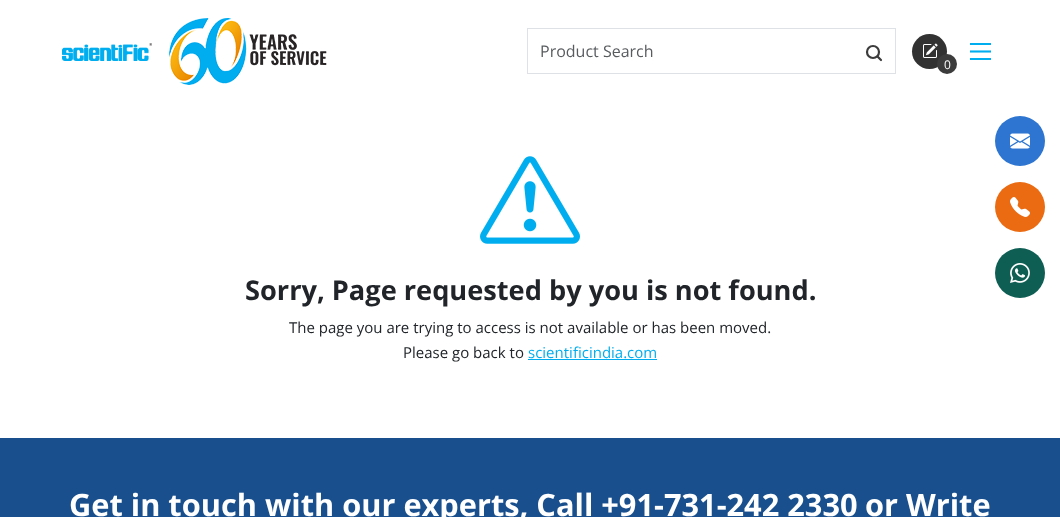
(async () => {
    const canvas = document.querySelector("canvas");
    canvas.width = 1060;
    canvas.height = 517;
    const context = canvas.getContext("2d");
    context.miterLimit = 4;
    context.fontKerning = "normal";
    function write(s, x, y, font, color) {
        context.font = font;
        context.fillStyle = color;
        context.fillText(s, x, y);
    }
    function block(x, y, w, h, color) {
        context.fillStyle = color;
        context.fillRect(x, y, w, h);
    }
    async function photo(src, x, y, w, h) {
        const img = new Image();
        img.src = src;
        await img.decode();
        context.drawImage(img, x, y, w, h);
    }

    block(0, 0, 1060, 517, "rgb(255, 255, 255)");
    await photo("media/1.png", 62, 43, 90, 18);
    await photo("media/2.png", 169, 18, 158, 67);
    context.strokeStyle = "rgb(222, 226, 230)";
    context.strokeRect(527.5, 28.5, 368, 45);
    write("Product Search", 540, 57, "16px Open Sans", "rgb(89, 92, 95)");
    context.beginPath();
    context.arc(873, 52, 6, 0, Math.PI * 2);
    context.strokeStyle = "rgb(60, 60, 60)";
    context.lineWidth = 2.2;
    context.stroke();
    context.beginPath();
    context.moveTo(881, 60);
    context.lineTo(877.5, 56.5);
    context.lineCap = "round";
    context.lineJoin = "round";
    context.stroke();
    block(970, 43, 21, 2, "rgb(0, 174, 239)");
    context.beginPath();
    context.moveTo(970, 51.5);
    context.lineTo(991, 51.5);
    context.strokeStyle = "rgb(0, 174, 239)";
    context.lineWidth = 2.1;
    context.lineCap = "butt";
    context.lineJoin = "miter";
    context.stroke();
    block(970, 58, 21, 2, "rgb(0, 174, 239)");
    context.fillStyle = "rgb(50, 50, 50)";
    context.beginPath();
    context.arc(929.5, 51.5, 17.5, 0, Math.PI * 2);
    context.fill();
    await photo("media/3.png", 923, 43, 15, 15);
    context.fillStyle = "rgb(60, 60, 60)";
    context.beginPath();
    context.arc(947, 64, 10, 0, Math.PI * 2);
    context.fill();
    write("0", 944, 69, "12px Open Sans", "rgb(255, 255, 255)");
    context.fillStyle = "rgb(45, 117, 208)";
    context.beginPath();
    context.arc(1020, 141, 25, 0, Math.PI * 2);
    context.fill();
    await photo("media/4.png", 1010, 133, 20, 16);
    context.fillStyle = "rgb(234, 107, 17)";
    context.beginPath();
    context.arc(1020, 207, 25, 0, Math.PI * 2);
    context.fill();
    await photo("media/5.png", 1010, 197, 20, 20);
    context.fillStyle = "rgb(15, 94, 84)";
    context.beginPath();
    context.arc(1020, 273, 25, 0, Math.PI * 2);
    context.fill();
    await photo("media/6.png", 1010, 263, 20, 20);
    await photo("media/7.png", 480, 156, 100, 88);
    write("Sorry, Page requested by you is not found.", 245, 300, "bold 27.2px Open Sans", "rgb(33, 37, 41)");
    write("The page you are trying to access is not available or has been moved.", 289, 333, "15px Open Sans", "rgb(33, 37, 41)");
    write("Please go back to", 403, 358, "15px Open Sans", "rgb(33, 37, 41)");
    write("scientificindia.com", 528, 358, "15px Open Sans", "rgb(0, 174, 239)");
    block(528, 359, 129, 1, "rgb(0, 174, 239)");
    block(0, 438, 1060, 79, "rgb(24, 79, 140)");
    write("Get in touch with our experts, Call +91-731-242 2330", 69, 516, "bold 30.75px Open Sans", "rgb(255, 255, 255)");
    write("or Write", 865, 516, "bold 30.75px Open Sans", "rgb(255, 255, 255)");
})();
